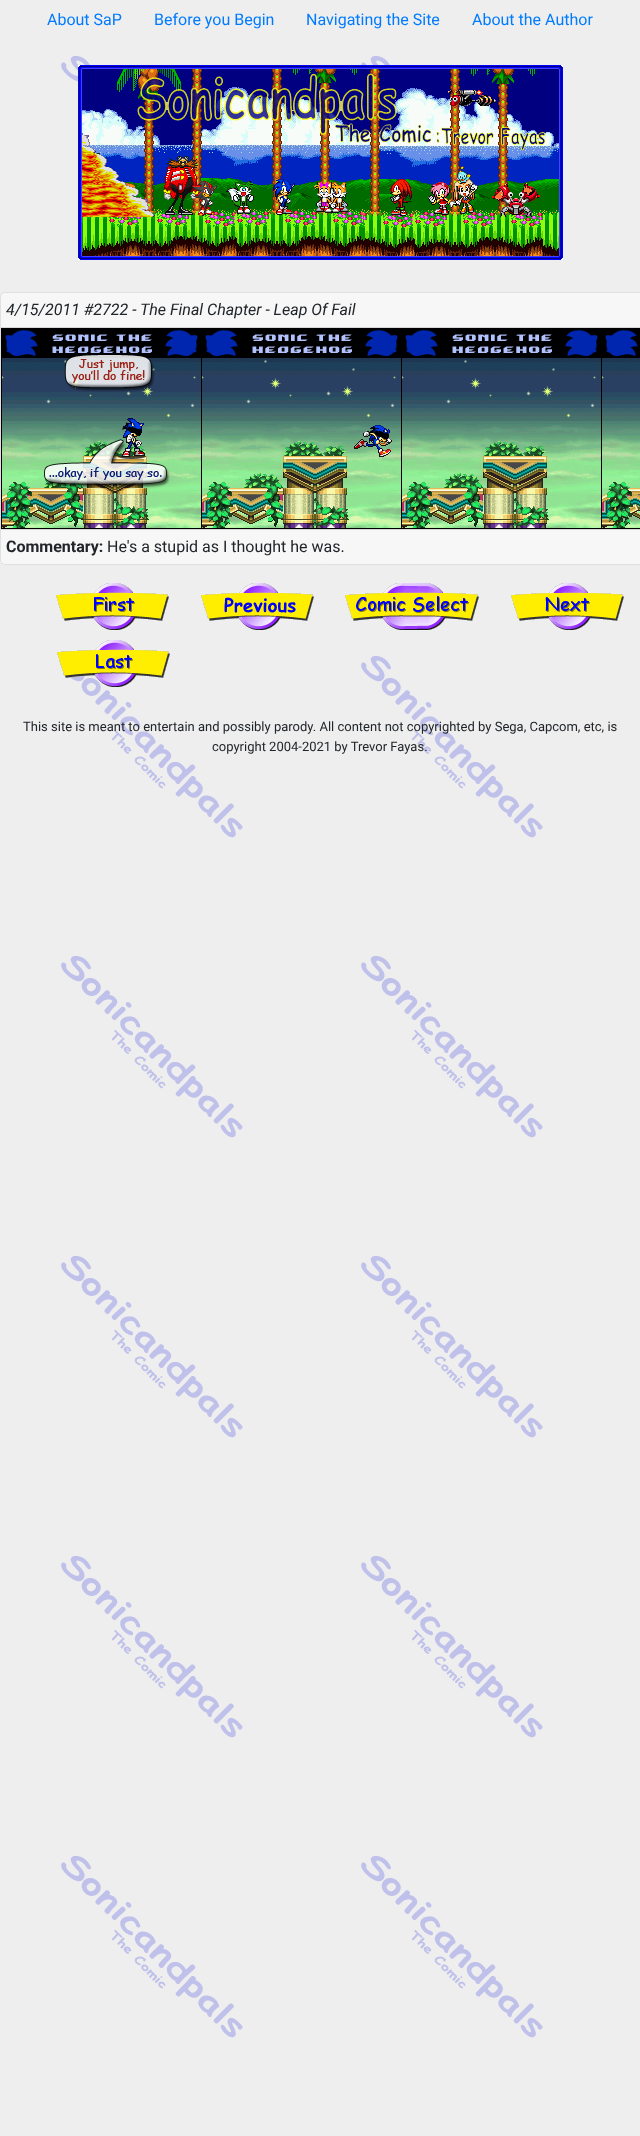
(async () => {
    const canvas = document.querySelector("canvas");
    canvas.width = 640;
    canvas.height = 2136;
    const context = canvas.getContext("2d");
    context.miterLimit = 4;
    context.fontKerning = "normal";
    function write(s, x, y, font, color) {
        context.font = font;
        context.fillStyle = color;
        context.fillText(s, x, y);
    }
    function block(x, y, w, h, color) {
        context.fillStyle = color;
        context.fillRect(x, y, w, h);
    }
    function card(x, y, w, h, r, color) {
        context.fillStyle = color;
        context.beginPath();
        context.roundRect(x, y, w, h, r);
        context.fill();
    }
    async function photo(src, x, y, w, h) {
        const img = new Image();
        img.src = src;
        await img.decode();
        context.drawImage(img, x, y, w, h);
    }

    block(0, 0, 640, 2136, "rgb(255, 255, 255)");
    await photo("media/1.png", 0, 0, 640, 2136);
    write("About SaP", 47, 25, "16px Roboto", "rgb(0, 123, 255)");
    write("Before you Begin", 154, 25, "16px Roboto", "rgb(0, 123, 255)");
    write("Navigating the Site", 306, 25, "16px Roboto", "rgb(0, 123, 255)");
    write("About the Author", 472, 25, "16px Roboto", "rgb(0, 123, 255)");
    await photo("media/2.png", 78, 65, 485, 195);
    card(0, 292, 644, 273, 4, "rgb(255, 255, 255)");
    context.beginPath();
    context.roundRect(0.5, 292.5, 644, 272, 3.5);
    context.strokeStyle = "rgba(0, 0, 0, 0.12)";
    context.stroke();
    block(1, 293, 639, 34, "rgba(0, 0, 0, 0.03)");
    block(1, 327, 639, 1, "rgb(216, 216, 216)");
    write("4/15/2011 #2722 - The Final Chapter - Leap Of Fail", 6, 315, "italic 16px Roboto", "rgb(33, 37, 41)");
    await photo("media/3.png", 1, 328, 639, 201);
    block(1, 530, 639, 34, "rgba(0, 0, 0, 0.03)");
    block(1, 529, 639, 1, "rgb(216, 216, 216)");
    write("Commentary:", 6, 552, "bold 16px Roboto", "rgb(33, 37, 41)");
    write("He's a stupid as I thought he was.", 107, 552, "16px Roboto", "rgb(33, 37, 41)");
    await photo("media/4.png", 56, 583, 113, 47);
    await photo("media/5.png", 201, 583, 113, 47);
    await photo("media/6.png", 345, 583, 134, 47);
    await photo("media/7.png", 511, 583, 113, 47);
    await photo("media/8.png", 57, 640, 113, 47);
    write("This site is meant to entertain and possibly parody. All content not copyrighted by Sega, Capcom, etc, is", 23, 731, "13px Roboto", "rgb(33, 37, 41)");
    write("copyright 2004-2021 by Trevor Fayas.", 212, 751, "13px Roboto", "rgb(33, 37, 41)");
})();
